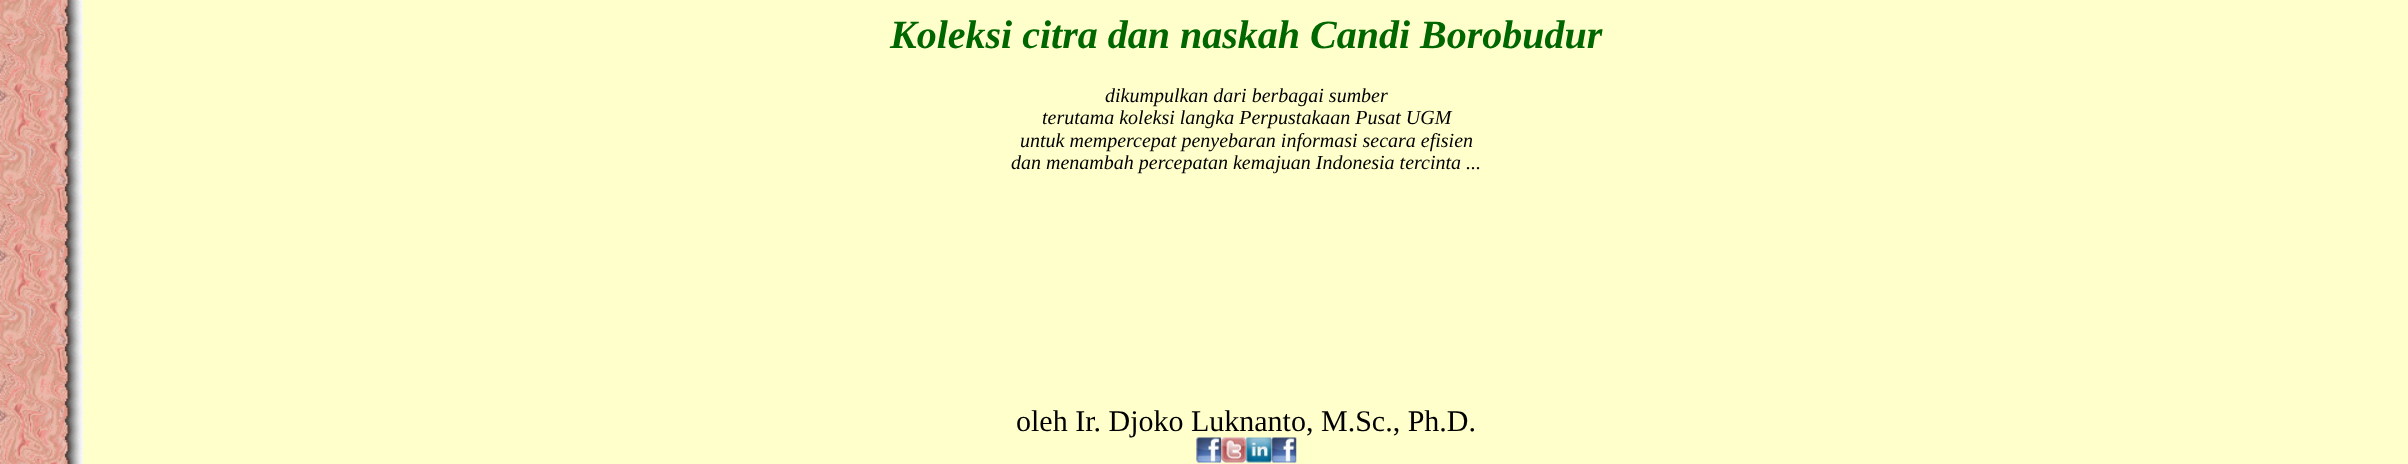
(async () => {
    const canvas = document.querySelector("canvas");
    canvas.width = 2408;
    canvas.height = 464;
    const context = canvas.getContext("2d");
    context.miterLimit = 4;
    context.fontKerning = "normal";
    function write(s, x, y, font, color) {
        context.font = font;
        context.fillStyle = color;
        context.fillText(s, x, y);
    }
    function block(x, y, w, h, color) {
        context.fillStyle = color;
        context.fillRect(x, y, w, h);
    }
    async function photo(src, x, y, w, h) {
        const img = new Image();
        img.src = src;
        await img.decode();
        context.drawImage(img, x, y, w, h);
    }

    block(0, 0, 2408, 464, "rgb(255, 255, 204)");
    await photo("media/1.png", 0, 0, 84, 464);
    write("Koleksi citra dan naskah Candi Borobudur", 890, 48, "italic bold 40px Liberation Serif", "rgb(0, 102, 0)");
    write("dikumpulkan dari berbagai sumber", 1105, 102, "italic 20px Liberation Serif", "rgb(0, 0, 0)");
    write("terutama koleksi langka Perpustakaan Pusat UGM", 1042, 124, "italic 20px Liberation Serif", "rgb(0, 0, 0)");
    write("untuk mempercepat penyebaran informasi secara efisien", 1020, 147, "italic 20px Liberation Serif", "rgb(0, 0, 0)");
    write("dan menambah percepatan kemajuan Indonesia tercinta ...", 1011, 169, "italic 20px Liberation Serif", "rgb(0, 0, 0)");
    write("oleh Ir. Djoko Luknanto, M.Sc., Ph.D.", 1016, 431, "30px Liberation Serif", "rgb(0, 0, 0)");
    await photo("media/2.png", 1196, 437, 26, 26);
    await photo("media/3.png", 1221, 437, 26, 26);
    await photo("media/4.png", 1246, 437, 26, 26);
    await photo("media/5.png", 1271, 437, 26, 26);
})();
